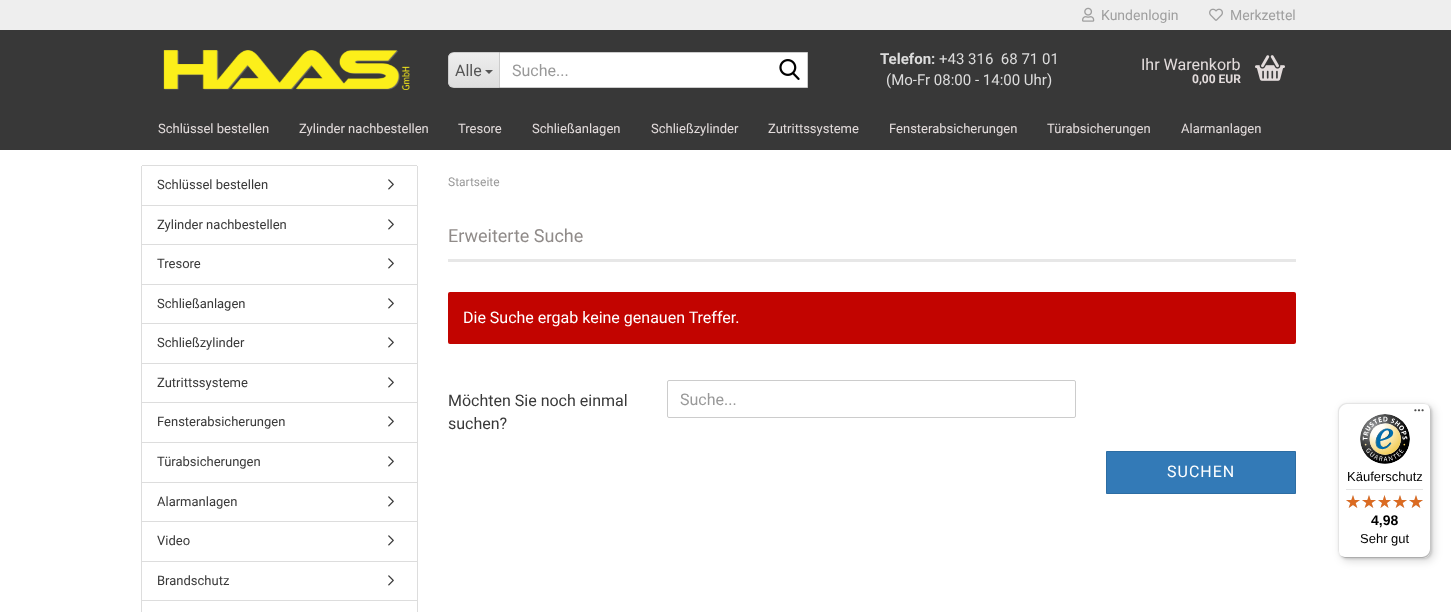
(async () => {
    const canvas = document.querySelector("canvas");
    canvas.width = 1451;
    canvas.height = 612;
    const context = canvas.getContext("2d");
    context.miterLimit = 4;
    context.fontKerning = "normal";
    function write(s, x, y, font, color) {
        context.font = font;
        context.fillStyle = color;
        context.fillText(s, x, y);
    }
    function block(x, y, w, h, color) {
        context.fillStyle = color;
        context.fillRect(x, y, w, h);
    }
    function card(x, y, w, h, r, color) {
        context.fillStyle = color;
        context.beginPath();
        context.roundRect(x, y, w, h, r);
        context.fill();
    }
    async function photo(src, x, y, w, h) {
        const img = new Image();
        img.src = src;
        await img.decode();
        context.drawImage(img, x, y, w, h);
    }
    let gradient;

    block(0, 0, 1451, 612, "rgb(255, 255, 255)");
    block(0, 30, 1451, 120, "rgb(56, 56, 56)");
    block(0, 0, 1451, 30, "rgb(238, 238, 238)");
    await photo("media/1.png", 1082, 7, 13, 15);
    write("Kundenlogin", 1101, 20, "14px Roboto", "rgb(159, 159, 159)");
    await photo("media/2.png", 1209, 8, 14, 13);
    write("Merkzettel", 1230, 20, "14px Roboto", "rgb(159, 159, 159)");
    await photo("media/3.png", 163, 50, 247, 40);
    context.save();
    context.beginPath();
    context.roundRect(448, 52, 51, 36, [6, 0, 0, 6]);
    context.clip();
    gradient = context.createLinearGradient(474, 53, 474, 87);
    gradient.addColorStop(0, "rgb(238, 238, 238)");
    gradient.addColorStop(1, "rgb(222, 222, 222)");
    context.fillStyle = gradient;
    context.fillRect(448, 53, 51, 34);
    context.restore();
    context.fillStyle = "rgb(204, 204, 204)";
    context.beginPath();
    context.moveTo(454, 52);
    context.lineTo(499, 52);
    context.lineTo(499, 88);
    context.lineTo(454, 88);
    context.bezierCurveTo(451, 88, 448, 85, 448, 82);
    context.lineTo(448, 58);
    context.bezierCurveTo(448, 55, 451, 52, 454, 52);
    context.closePath();
    context.moveTo(454, 53);
    context.lineTo(499, 53);
    context.lineTo(499, 87);
    context.lineTo(454, 87);
    context.bezierCurveTo(451, 87, 449, 85, 449, 82);
    context.lineTo(449, 58);
    context.bezierCurveTo(449, 55, 451, 53, 454, 53);
    context.closePath();
    context.fill("evenodd");
    write("Alle", 455, 76, "16px Roboto", "rgb(85, 85, 85)");
    context.beginPath();
    context.moveTo(485, 70);
    context.lineTo(493, 70);
    context.lineTo(489, 74);
    context.closePath();
    context.fill();
    context.fillStyle = "rgb(255, 255, 255)";
    context.beginPath();
    context.rect(499.5, 52.5, 308, 35);
    context.fill();
    context.strokeStyle = "rgb(204, 204, 204)";
    context.stroke();
    write("Suche...", 512, 76, "16px Roboto", "rgb(153, 153, 153)");
    await photo("media/4.png", 779, 59, 21, 21);
    write("Telefon:", 880, 64, "bold 15px Roboto", "rgb(220, 220, 220)");
    write("+43 316  68 71 01", 939, 64, "15px Roboto", "rgb(220, 220, 220)");
    write("(Mo-Fr 08:00 - 14:00 Uhr)", 886, 85, "15px Roboto", "rgb(220, 220, 220)");
    write("Ihr Warenkorb", 1141, 70, "16px Roboto", "rgb(227, 220, 220)");
    write("0,00 EUR", 1192, 83, "bold 12px Roboto", "rgb(227, 220, 220)");
    await photo("media/5.png", 1255, 55, 30, 26);
    write("Schlüssel bestellen", 158, 133, "13px Roboto", "rgb(227, 220, 220)");
    write("Zylinder nachbestellen", 299, 133, "13px Roboto", "rgb(227, 220, 220)");
    write("Tresore", 458, 133, "13px Roboto", "rgb(227, 220, 220)");
    write("Schließanlagen", 532, 133, "13px Roboto", "rgb(227, 220, 220)");
    write("Schließzylinder", 651, 133, "13px Roboto", "rgb(227, 220, 220)");
    write("Zutrittssysteme", 768, 133, "13px Roboto", "rgb(227, 220, 220)");
    write("Fensterabsicherungen", 889, 133, "13px Roboto", "rgb(227, 220, 220)");
    write("Türabsicherungen", 1047, 133, "13px Roboto", "rgb(227, 220, 220)");
    write("Alarmanlagen", 1181, 133, "13px Roboto", "rgb(227, 220, 220)");
    block(142, 165, 275, 1, "rgb(221, 221, 221)");
    block(417, 166, 1, 446, "rgb(221, 221, 221)");
    block(141, 166, 1, 446, "rgb(221, 221, 221)");
    block(142, 205, 275, 1, "rgb(221, 221, 221)");
    write("Schlüssel bestellen", 157, 189, "13px Roboto", "rgb(57, 57, 57)");
    await photo("media/6.png", 388, 179, 6, 11);
    block(142, 244, 275, 1, "rgb(221, 221, 221)");
    write("Zylinder nachbestellen", 157, 229, "13px Roboto", "rgb(57, 57, 57)");
    await photo("media/6.png", 388, 219, 6, 11);
    block(142, 284, 275, 1, "rgb(221, 221, 221)");
    write("Tresore", 157, 268, "13px Roboto", "rgb(57, 57, 57)");
    await photo("media/6.png", 388, 258, 6, 11);
    block(142, 323, 275, 1, "rgb(221, 221, 221)");
    write("Schließanlagen", 157, 308, "13px Roboto", "rgb(57, 57, 57)");
    await photo("media/6.png", 388, 298, 6, 11);
    block(142, 363, 275, 1, "rgb(221, 221, 221)");
    write("Schließzylinder", 157, 347, "13px Roboto", "rgb(57, 57, 57)");
    await photo("media/6.png", 388, 337, 6, 11);
    block(142, 402, 275, 1, "rgb(221, 221, 221)");
    write("Zutrittssysteme", 157, 387, "13px Roboto", "rgb(57, 57, 57)");
    await photo("media/6.png", 388, 377, 6, 11);
    block(142, 442, 275, 1, "rgb(221, 221, 221)");
    write("Fensterabsicherungen", 157, 426, "13px Roboto", "rgb(57, 57, 57)");
    await photo("media/6.png", 388, 416, 6, 11);
    block(142, 482, 275, 1, "rgb(221, 221, 221)");
    write("Türabsicherungen", 157, 466, "13px Roboto", "rgb(57, 57, 57)");
    await photo("media/6.png", 388, 456, 6, 11);
    block(142, 521, 275, 1, "rgb(221, 221, 221)");
    write("Alarmanlagen", 157, 506, "13px Roboto", "rgb(57, 57, 57)");
    await photo("media/6.png", 388, 496, 6, 11);
    block(142, 561, 275, 1, "rgb(221, 221, 221)");
    write("Video", 157, 545, "13px Roboto", "rgb(57, 57, 57)");
    await photo("media/6.png", 388, 535, 6, 11);
    block(142, 600, 275, 1, "rgb(221, 221, 221)");
    write("Brandschutz", 157, 585, "13px Roboto", "rgb(57, 57, 57)");
    await photo("media/6.png", 388, 575, 6, 11);
    write("Startseite", 448, 186, "12px Roboto", "rgb(153, 153, 153)");
    block(448, 259, 848, 3, "rgb(231, 231, 231)");
    write("Erweiterte Suche", 448, 242, "18px Roboto", "rgb(144, 139, 137)");
    card(448, 292, 848, 52, 2, "rgb(194, 4, 0)");
    write("Die Suche ergab keine genauen Treffer.", 463, 323, "16px Roboto", "rgb(255, 255, 255)");
    write("Möchten Sie noch einmal", 448, 406, "16px Roboto", "rgb(57, 57, 57)");
    write("suchen?", 448, 429, "16px Roboto", "rgb(57, 57, 57)");
    context.beginPath();
    context.roundRect(667.5, 380.5, 408, 37, 1.5);
    context.stroke();
    write("Suche...", 680, 405, "16px Roboto", "rgb(153, 153, 153)");
    context.fillStyle = "rgb(51, 122, 183)";
    context.beginPath();
    context.rect(1106.5, 451.5, 189, 42);
    context.fill();
    context.strokeStyle = "rgb(45, 109, 163)";
    context.stroke();
    context.letterSpacing = "1px";
    write("SUCHEN", 1167, 477, "16px Roboto", "rgb(255, 255, 255)");
    context.fillStyle = "rgba(0, 0, 0, 0.15)";
    context.filter = "blur(4px)";
    context.beginPath();
    context.roundRect(1341, 406, 93, 155, 8);
    context.fill();
    context.filter = "none";
    context.filter = "blur(1px)";
    context.beginPath();
    context.roundRect(1339, 404, 93, 155, 8);
    context.fill();
    context.filter = "none";
    card(1338, 403, 93, 155, 8, "rgb(255, 255, 255)");
    context.fillStyle = "rgb(229, 229, 229)";
    context.beginPath();
    context.moveTo(1347, 404);
    context.lineTo(1424, 404);
    context.bezierCurveTo(1426, 404, 1428, 405, 1430, 407);
    context.bezierCurveTo(1428, 405, 1426, 403, 1423, 403);
    context.lineTo(1346, 403);
    context.bezierCurveTo(1342, 403, 1338, 407, 1338, 411);
    context.lineTo(1338, 550);
    context.bezierCurveTo(1338, 553, 1340, 555, 1342, 557);
    context.bezierCurveTo(1340, 555, 1339, 553, 1339, 551);
    context.lineTo(1339, 412);
    context.bezierCurveTo(1339, 408, 1343, 404, 1347, 404);
    context.closePath();
    context.fill();
    context.fillStyle = "rgb(204, 204, 204)";
    context.beginPath();
    context.moveTo(1339, 554);
    context.bezierCurveTo(1341, 556, 1343, 558, 1346, 558);
    context.lineTo(1423, 558);
    context.bezierCurveTo(1427, 558, 1431, 554, 1431, 550);
    context.lineTo(1431, 411);
    context.bezierCurveTo(1431, 408, 1429, 406, 1427, 404);
    context.bezierCurveTo(1429, 406, 1430, 408, 1430, 410);
    context.lineTo(1430, 549);
    context.bezierCurveTo(1430, 553, 1426, 557, 1422, 557);
    context.lineTo(1345, 557);
    context.bezierCurveTo(1343, 557, 1341, 556, 1339, 554);
    context.closePath();
    context.fill();
    context.fillStyle = "rgba(50, 50, 50, 0.2)";
    context.beginPath();
    context.moveTo(1340, 555);
    context.bezierCurveTo(1341, 557, 1344, 558, 1346, 558);
    context.lineTo(1423, 558);
    context.bezierCurveTo(1427, 558, 1431, 554, 1431, 550);
    context.lineTo(1431, 411);
    context.bezierCurveTo(1431, 409, 1430, 406, 1428, 405);
    context.bezierCurveTo(1429, 406, 1430, 408, 1430, 410);
    context.lineTo(1430, 549);
    context.bezierCurveTo(1430, 554, 1427, 557, 1422, 557);
    context.lineTo(1345, 557);
    context.bezierCurveTo(1343, 557, 1341, 556, 1340, 555);
    context.closePath();
    context.fill();
    context.fillStyle = "rgba(255, 255, 255, 0.3)";
    context.beginPath();
    context.moveTo(1422, 558);
    context.lineTo(1423, 558);
    context.bezierCurveTo(1427, 558, 1431, 554, 1431, 550);
    context.lineTo(1431, 411);
    context.bezierCurveTo(1431, 409, 1430, 406, 1428, 405);
    context.bezierCurveTo(1429, 406, 1430, 408, 1430, 410);
    context.lineTo(1430, 550);
    context.bezierCurveTo(1430, 554, 1427, 558, 1422, 558);
    context.closePath();
    context.fill();
    await photo("media/7.png", 1414, 409, 10, 3);
    await photo("media/8.png", 1360, 414, 50, 50);
    context.letterSpacing = "0px";
    write("Käuferschutz", 1347, 481, "13px Liberation Sans", "rgb(0, 0, 0)");
    block(1346, 489, 77, 1, "rgb(229, 229, 229)");
    await photo("media/9.png", 1346, 495, 14, 13);
    await photo("media/9.png", 1362, 495, 14, 13);
    await photo("media/10.png", 1378, 495, 13, 13);
    await photo("media/9.png", 1393, 495, 14, 13);
    await photo("media/9.png", 1409, 495, 14, 13);
    await photo("media/11.png", 1346, 495, 14, 13);
    await photo("media/11.png", 1362, 495, 14, 13);
    await photo("media/12.png", 1378, 495, 13, 13);
    await photo("media/11.png", 1393, 495, 14, 13);
    await photo("media/11.png", 1409, 495, 14, 13);
    write("4,98", 1371, 525, "bold 14px Liberation Sans", "rgb(0, 0, 0)");
    write("Sehr gut", 1360, 543, "13px Liberation Sans", "rgb(0, 0, 0)");
})();
